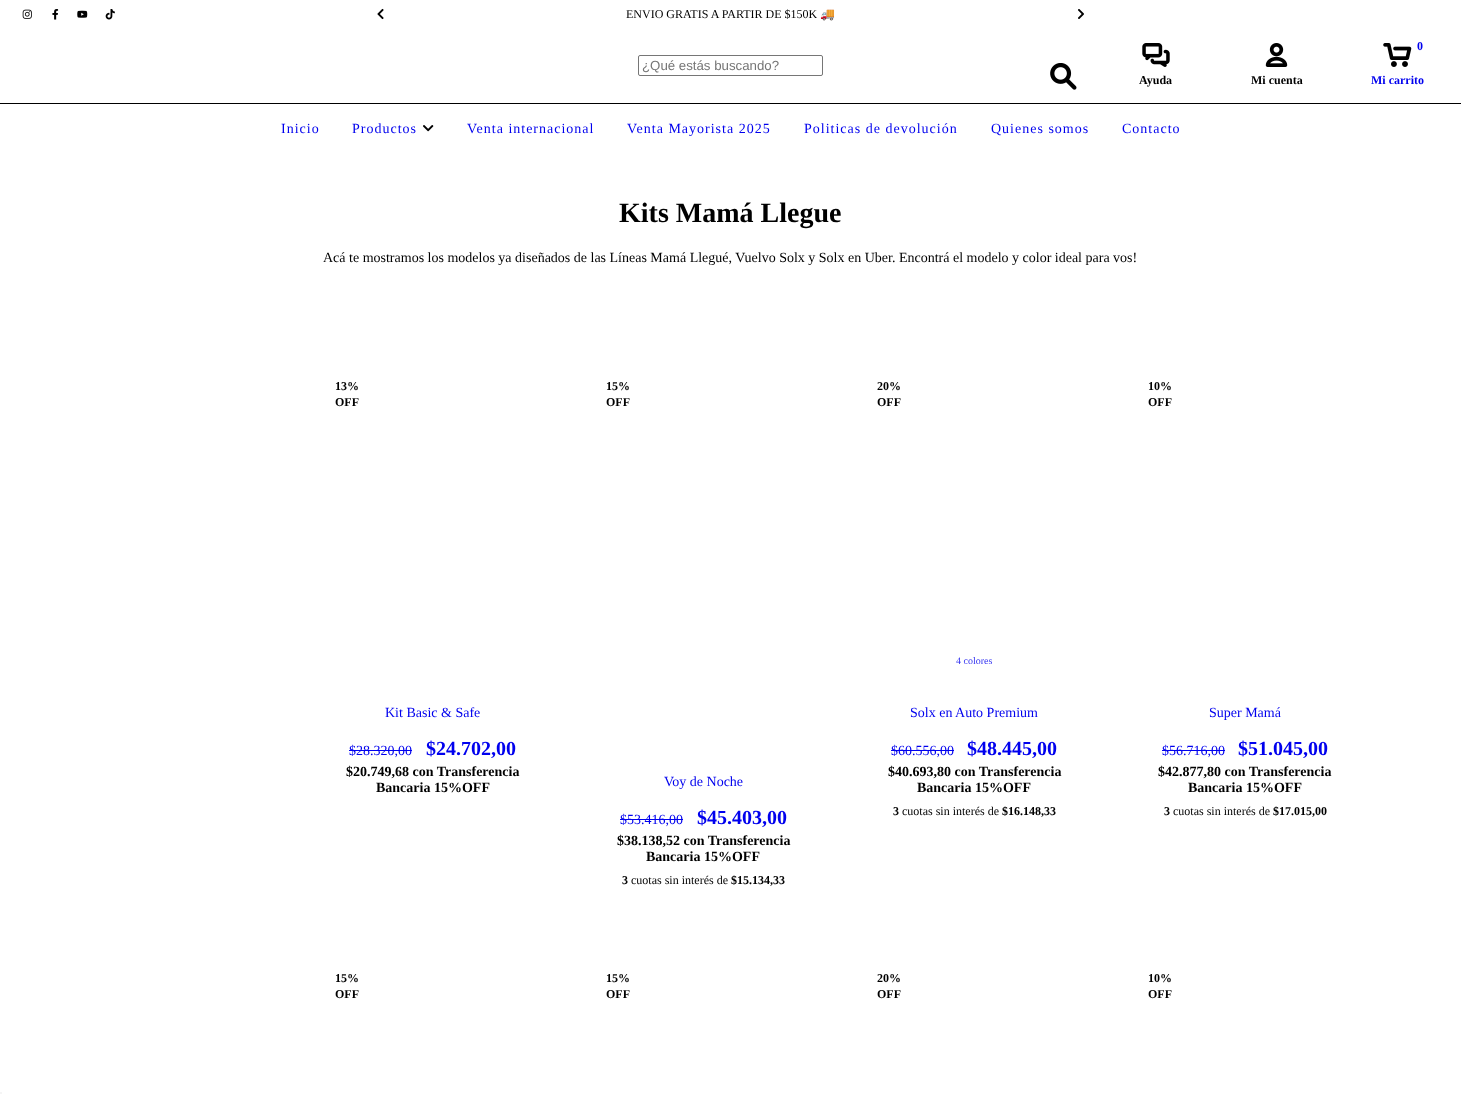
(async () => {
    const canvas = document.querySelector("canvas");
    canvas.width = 1461;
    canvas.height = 1094;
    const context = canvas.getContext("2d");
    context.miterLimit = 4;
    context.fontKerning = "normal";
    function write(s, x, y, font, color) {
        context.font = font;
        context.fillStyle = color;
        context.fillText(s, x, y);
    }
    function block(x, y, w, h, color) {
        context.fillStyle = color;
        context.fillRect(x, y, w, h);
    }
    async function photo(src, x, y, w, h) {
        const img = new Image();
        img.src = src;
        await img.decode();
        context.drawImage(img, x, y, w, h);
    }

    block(0, 0, 1461, 1094, "rgb(255, 255, 255)");
    await photo("media/1.png", 22, 9, 10, 10);
    await photo("media/2.png", 52, 9, 7, 11);
    await photo("media/3.png", 77, 10, 11, 8);
    await photo("media/4.png", 105, 9, 10, 11);
    await photo("media/5.png", 377, 8, 7, 12);
    write("ENVIO GRATIS A PARTIR DE $150K", 626, 18, "12px Liberation Serif", "rgb(0, 0, 0)");
    write("🚚", 820, 18, "12px Noto Color Emoji", "rgb(0, 0, 0)");
    await photo("media/6.png", 1078, 9, 6, 10);
    context.beginPath();
    context.roundRect(638.5, 55.5, 184, 20, 1.5);
    context.strokeStyle = "rgb(118, 118, 118)";
    context.stroke();
    write("¿Qué estás buscando?", 642, 70, "13.25px Liberation Sans", "rgb(117, 117, 117)");
    await photo("media/7.png", 1050, 63, 27, 27);
    await photo("media/8.png", 1142, 43, 28, 24);
    write("Ayuda", 1139, 84, "bold 12px Liberation Serif", "rgb(0, 0, 0)");
    await photo("media/9.png", 1265, 43, 23, 24);
    write("Mi cuenta", 1251, 84, "bold 12px Liberation Serif", "rgb(0, 0, 0)");
    await photo("media/10.png", 1383, 43, 29, 24);
    write("0", 1417, 50, "bold 12px Liberation Serif", "rgb(0, 0, 238)");
    write("Mi carrito", 1371, 84, "bold 12px Liberation Serif", "rgb(0, 0, 238)");
    block(0, 103, 1461, 1, "rgb(0, 0, 0)");
    context.letterSpacing = "1px";
    write("Inicio", 281, 133, "14px Liberation Serif", "rgb(0, 0, 238)");
    write("Productos", 352, 133, "14px Liberation Serif", "rgb(0, 0, 238)");
    await photo("media/11.png", 423, 125, 11, 7);
    write("Venta internacional", 467, 133, "14px Liberation Serif", "rgb(0, 0, 238)");
    write("Venta Mayorista 2025", 627, 133, "14px Liberation Serif", "rgb(0, 0, 238)");
    write("Politicas de devolución", 804, 133, "14px Liberation Serif", "rgb(0, 0, 238)");
    write("Quienes somos", 991, 133, "14px Liberation Serif", "rgb(0, 0, 238)");
    write("Contacto", 1122, 133, "14px Liberation Serif", "rgb(0, 0, 238)");
    context.letterSpacing = "0px";
    write("Kits Mamá Llegue", 619, 222, "bold 28px Liberation Serif", "rgb(0, 0, 0)");
    write("Acá te mostramos los modelos ya diseñados de las Líneas Mamá Llegué, Vuelvo Solx y Solx en Uber. Encontrá el modelo y color ideal para vos!", 323, 262, "14px Liberation Serif", "rgb(0, 0, 0)");
    write("13%", 335, 390, "bold 12px Liberation Serif", "rgb(0, 0, 0)");
    write("OFF", 335, 406, "bold 12px Liberation Serif", "rgb(0, 0, 0)");
    write("Kit Basic & Safe", 385, 717, "14px Liberation Serif", "rgb(0, 0, 238)");
    write("$28.320,00", 349, 755, "14px Liberation Serif", "rgb(0, 0, 238)");
    block(349, 750, 63, 1, "rgb(0, 0, 238)");
    write("$24.702,00", 426, 755, "bold 20px Liberation Serif", "rgb(0, 0, 238)");
    write("$20.749,68 con Transferencia", 346, 776, "bold 14px Liberation Serif", "rgb(0, 0, 0)");
    write("Bancaria 15%OFF", 376, 792, "bold 14px Liberation Serif", "rgb(0, 0, 0)");
    write("15%", 606, 390, "bold 12px Liberation Serif", "rgb(0, 0, 0)");
    write("OFF", 606, 406, "bold 12px Liberation Serif", "rgb(0, 0, 0)");
    write("Voy de Noche", 664, 786, "14px Liberation Serif", "rgb(0, 0, 238)");
    write("$53.416,00", 620, 824, "14px Liberation Serif", "rgb(0, 0, 238)");
    block(620, 819, 63, 1, "rgb(0, 0, 238)");
    write("$45.403,00", 697, 824, "bold 20px Liberation Serif", "rgb(0, 0, 238)");
    write("$38.138,52 con Transferencia", 617, 845, "bold 14px Liberation Serif", "rgb(0, 0, 0)");
    write("Bancaria 15%OFF", 646, 861, "bold 14px Liberation Serif", "rgb(0, 0, 0)");
    write("3", 622, 884, "bold 12px Liberation Serif", "rgb(0, 0, 0)");
    write("cuotas sin interés de", 631, 884, "12px Liberation Serif", "rgb(0, 0, 0)");
    write("$15.134,33", 731, 884, "bold 12px Liberation Serif", "rgb(0, 0, 0)");
    write("20%", 877, 390, "bold 12px Liberation Serif", "rgb(0, 0, 0)");
    write("OFF", 877, 406, "bold 12px Liberation Serif", "rgb(0, 0, 0)");
    write("4 colores", 956, 664, "10px Liberation Serif", "rgb(51, 51, 241)");
    write("Solx en Auto Premium", 910, 717, "14px Liberation Serif", "rgb(0, 0, 238)");
    write("$60.556,00", 891, 755, "14px Liberation Serif", "rgb(0, 0, 238)");
    block(891, 750, 63, 1, "rgb(0, 0, 238)");
    write("$48.445,00", 967, 755, "bold 20px Liberation Serif", "rgb(0, 0, 238)");
    write("$40.693,80 con Transferencia", 888, 776, "bold 14px Liberation Serif", "rgb(0, 0, 0)");
    write("Bancaria 15%OFF", 917, 792, "bold 14px Liberation Serif", "rgb(0, 0, 0)");
    write("3", 893, 815, "bold 12px Liberation Serif", "rgb(0, 0, 0)");
    write("cuotas sin interés de", 902, 815, "12px Liberation Serif", "rgb(0, 0, 0)");
    write("$16.148,33", 1002, 815, "bold 12px Liberation Serif", "rgb(0, 0, 0)");
    write("10%", 1148, 390, "bold 12px Liberation Serif", "rgb(0, 0, 0)");
    write("OFF", 1148, 406, "bold 12px Liberation Serif", "rgb(0, 0, 0)");
    write("Super Mamá", 1209, 717, "14px Liberation Serif", "rgb(0, 0, 238)");
    write("$56.716,00", 1162, 755, "14px Liberation Serif", "rgb(0, 0, 238)");
    block(1162, 750, 63, 1, "rgb(0, 0, 238)");
    write("$51.045,00", 1238, 755, "bold 20px Liberation Serif", "rgb(0, 0, 238)");
    write("$42.877,80 con Transferencia", 1158, 776, "bold 14px Liberation Serif", "rgb(0, 0, 0)");
    write("Bancaria 15%OFF", 1188, 792, "bold 14px Liberation Serif", "rgb(0, 0, 0)");
    write("3", 1164, 815, "bold 12px Liberation Serif", "rgb(0, 0, 0)");
    write("cuotas sin interés de", 1173, 815, "12px Liberation Serif", "rgb(0, 0, 0)");
    write("$17.015,00", 1273, 815, "bold 12px Liberation Serif", "rgb(0, 0, 0)");
    write("15%", 335, 982, "bold 12px Liberation Serif", "rgb(0, 0, 0)");
    write("OFF", 335, 998, "bold 12px Liberation Serif", "rgb(0, 0, 0)");
    write("15%", 606, 982, "bold 12px Liberation Serif", "rgb(0, 0, 0)");
    write("OFF", 606, 998, "bold 12px Liberation Serif", "rgb(0, 0, 0)");
    write("20%", 877, 982, "bold 12px Liberation Serif", "rgb(0, 0, 0)");
    write("OFF", 877, 998, "bold 12px Liberation Serif", "rgb(0, 0, 0)");
    write("10%", 1148, 982, "bold 12px Liberation Serif", "rgb(0, 0, 0)");
    write("OFF", 1148, 998, "bold 12px Liberation Serif", "rgb(0, 0, 0)");
    block(0, 1092, 2, 2, "rgb(245, 245, 245)");
})();
